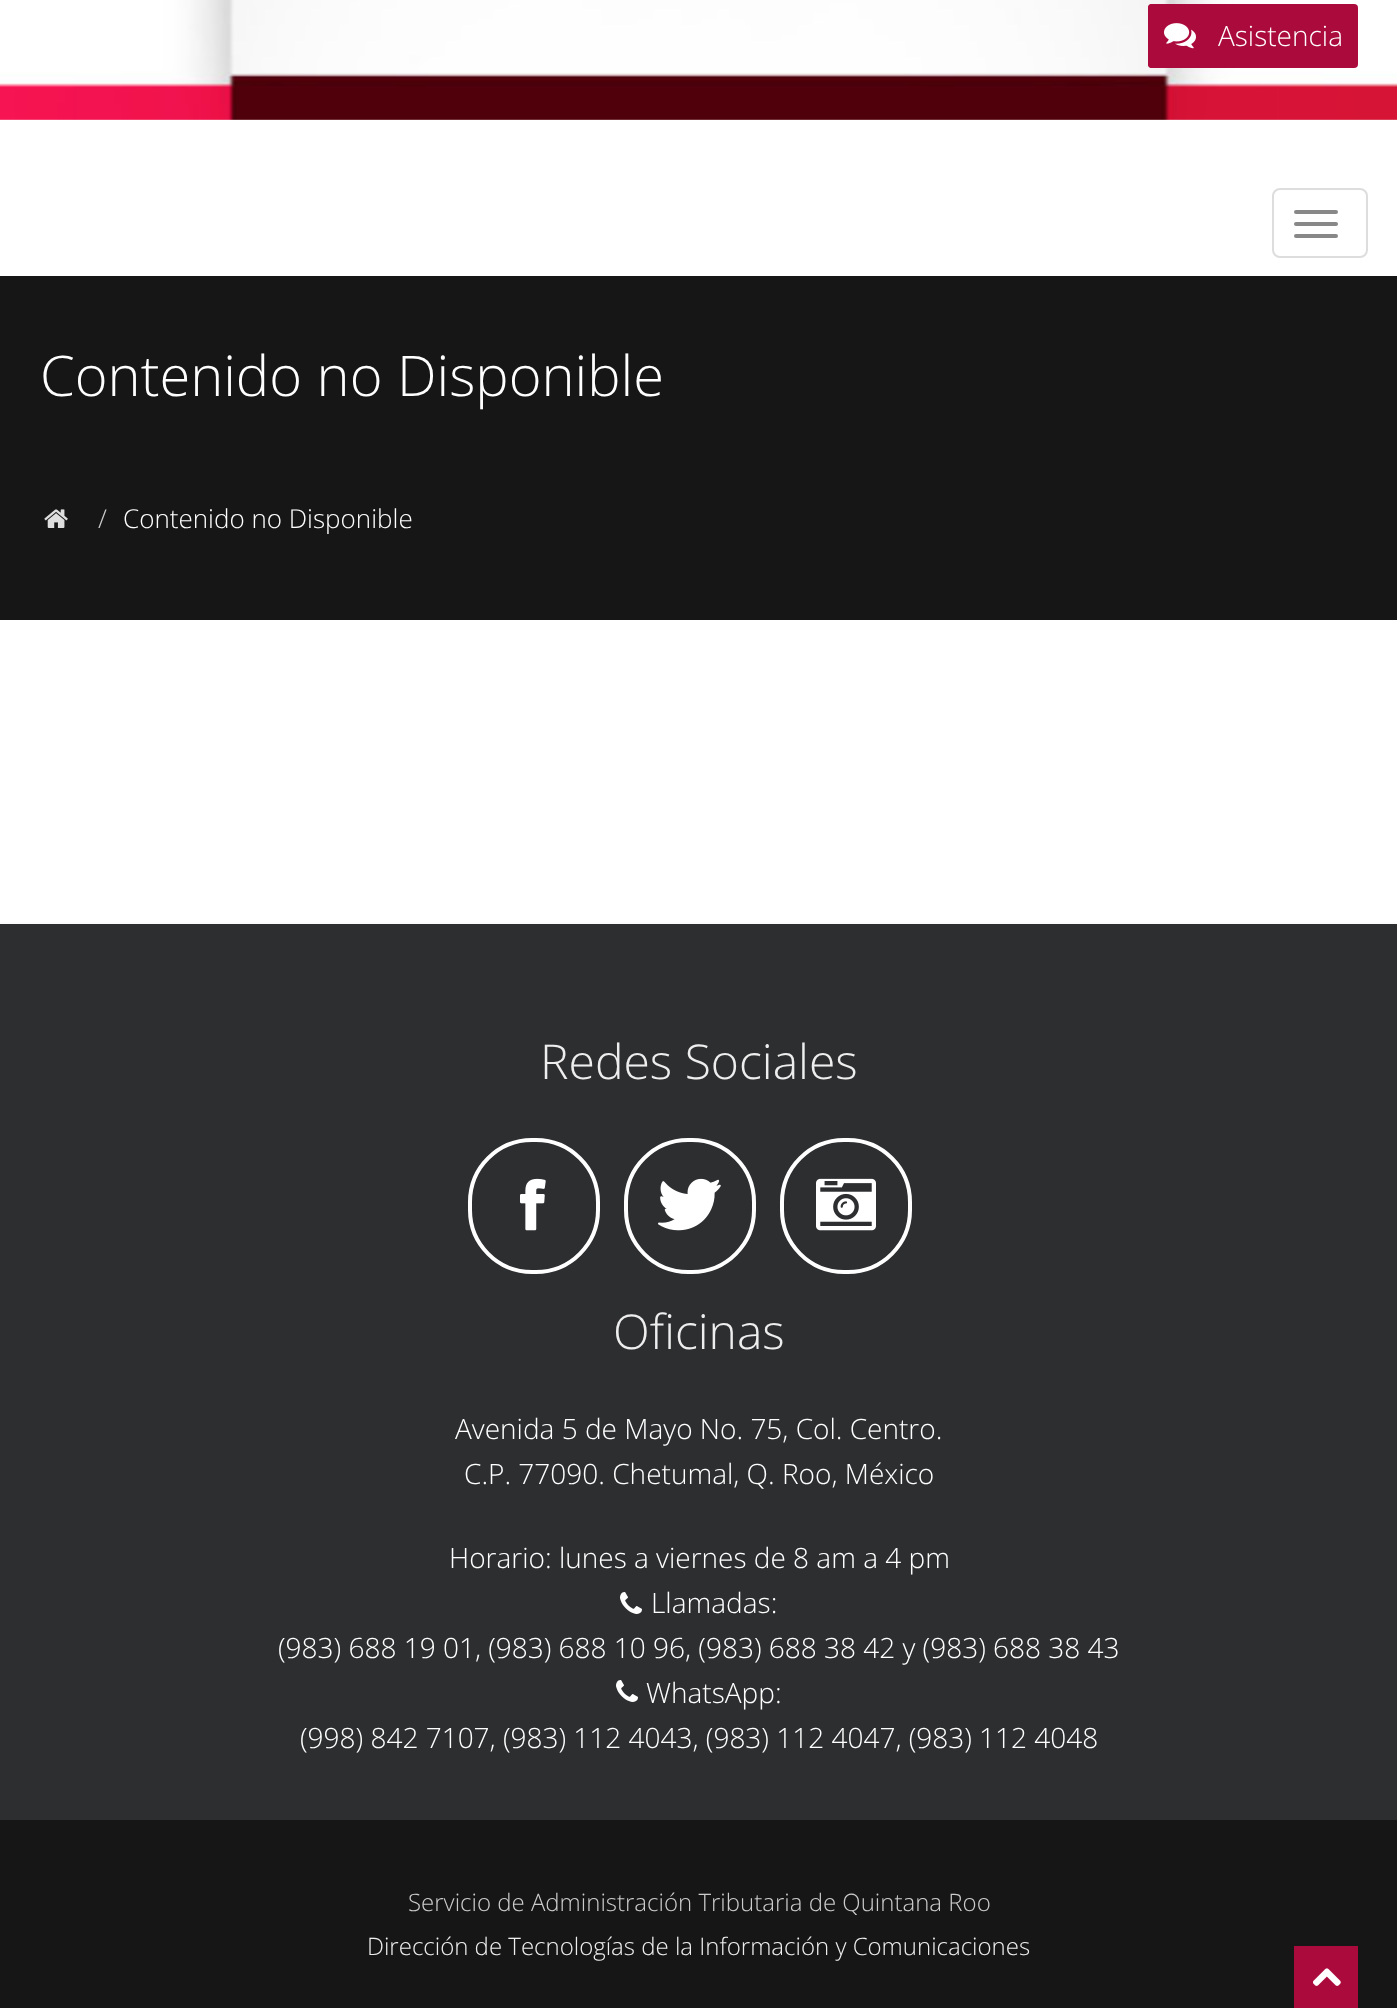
(async () => {
    const canvas = document.querySelector("canvas");
    canvas.width = 1397;
    canvas.height = 2008;
    const context = canvas.getContext("2d");
    context.miterLimit = 4;
    context.fontKerning = "normal";
    function write(s, x, y, font, color) {
        context.font = font;
        context.fillStyle = color;
        context.fillText(s, x, y);
    }
    function block(x, y, w, h, color) {
        context.fillStyle = color;
        context.fillRect(x, y, w, h);
    }
    function card(x, y, w, h, r, color) {
        context.fillStyle = color;
        context.beginPath();
        context.roundRect(x, y, w, h, r);
        context.fill();
    }
    async function photo(src, x, y, w, h) {
        const img = new Image();
        img.src = src;
        await img.decode();
        context.drawImage(img, x, y, w, h);
    }

    block(0, 0, 1397, 2008, "rgb(255, 255, 255)");
    await photo("media/1.png", 0, 0, 1397, 120);
    context.beginPath();
    context.roundRect(1273, 189, 94, 68, 7);
    context.strokeStyle = "rgb(221, 221, 221)";
    context.lineWidth = 2;
    context.stroke();
    card(1294, 210, 44, 4, 2, "rgb(136, 136, 136)");
    card(1294, 222, 44, 4, 2, "rgb(136, 136, 136)");
    card(1294, 234, 44, 4, 2, "rgb(136, 136, 136)");
    card(1148, 4, 210, 64, 4, "rgb(171, 10, 61)");
    card(1148, 4, 64, 64, 4, "rgb(171, 10, 61)");
    await photo("media/2.png", 1164, 23, 32, 26);
    write("Asistencia", 1218, 46, "300 28px Open Sans", "rgb(255, 255, 255)");
    block(0, 276, 1397, 344, "rgb(22, 22, 23)");
    write("Contenido no Disponible", 40, 396, "300 56px Open Sans", "rgb(255, 255, 255)");
    await photo("media/3.png", 44, 509, 24, 19);
    write("/", 98, 528, "300 26px Open Sans", "rgb(204, 204, 204)");
    write("Contenido no Disponible", 123, 528, "300 26px Open Sans", "rgb(255, 255, 255)");
    block(0, 922, 1397, 2, "rgb(252, 252, 252)");
    block(0, 924, 1397, 896, "rgb(44, 46, 48)");
    write("Redes Sociales", 540, 1079, "300 48px Open Sans", "rgb(238, 238, 238)");
    context.beginPath();
    context.roundRect(470, 1140, 128, 132, 62);
    context.strokeStyle = "rgb(255, 255, 255)";
    context.lineWidth = 4;
    context.stroke();
    await photo("media/4.png", 520, 1178, 26, 53);
    context.beginPath();
    context.roundRect(626, 1140, 128, 132, 62);
    context.stroke();
    await photo("media/5.png", 658, 1178, 63, 53);
    context.beginPath();
    context.roundRect(782, 1140, 128, 132, 62);
    context.stroke();
    await photo("media/6.png", 816, 1178, 60, 53);
    write("Oficinas", 613, 1349, "300 48px Open Sans", "rgb(238, 238, 238)");
    write("Avenida 5 de Mayo No. 75, Col. Centro.", 455, 1439, "300 28px Open Sans", "rgb(255, 255, 255)");
    write("C.P. 77090. Chetumal, Q. Roo, México", 464, 1484, "300 28px Open Sans", "rgb(255, 255, 255)");
    write("Horario: lunes a viernes de 8 am a 4 pm", 449, 1568, "300 28px Open Sans", "rgb(255, 255, 255)");
    await photo("media/7.png", 620, 1592, 22, 22);
    write("Llamadas:", 651, 1613, "300 28px Open Sans", "rgb(255, 255, 255)");
    write("(983) 688 19 01, (983) 688 10 96, (983) 688 38 42 y (983) 688 38 43", 278, 1658, "300 28px Open Sans", "rgb(255, 255, 255)");
    await photo("media/7.png", 616, 1680, 22, 22);
    write("WhatsApp:", 646, 1703, "300 28px Open Sans", "rgb(255, 255, 255)");
    write("(998) 842 7107, (983) 112 4043, (983) 112 4047, (983) 112 4048", 300, 1748, "300 28px Open Sans", "rgb(255, 255, 255)");
    block(0, 1820, 1397, 188, "rgb(22, 22, 23)");
    write("Servicio de Administración Tributaria de Quintana Roo", 408, 1911, "300 24px Open Sans", "rgb(204, 204, 204)");
    write("Dirección de Tecnologías de la Información y Comunicaciones", 367, 1955, "300 24px Open Sans", "rgb(238, 238, 238)");
    block(1294, 1946, 64, 62, "rgb(171, 10, 61)");
    await photo("media/8.png", 1313, 1968, 28, 18);
})();
